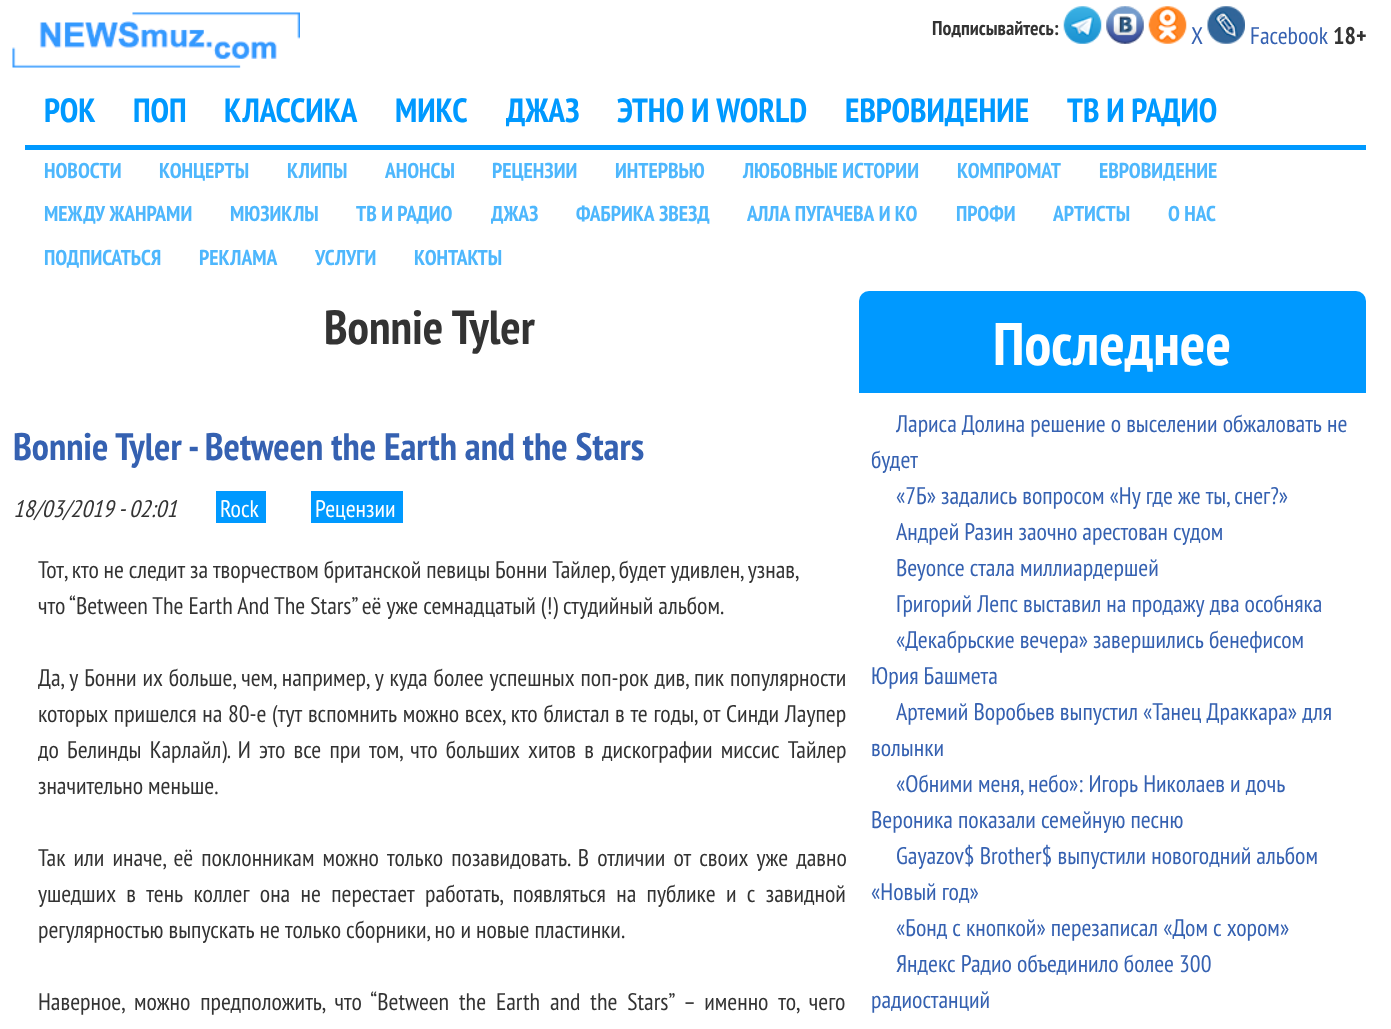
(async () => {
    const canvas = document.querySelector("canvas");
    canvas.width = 1391;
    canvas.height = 1029;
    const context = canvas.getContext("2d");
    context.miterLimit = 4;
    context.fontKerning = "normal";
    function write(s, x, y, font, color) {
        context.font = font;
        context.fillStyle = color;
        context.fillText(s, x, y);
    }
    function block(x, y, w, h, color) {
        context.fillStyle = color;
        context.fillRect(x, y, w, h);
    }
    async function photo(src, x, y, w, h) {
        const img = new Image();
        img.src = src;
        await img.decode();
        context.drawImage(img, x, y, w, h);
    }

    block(0, 0, 1391, 1029, "rgb(255, 255, 255)");
    await photo("media/1.png", 12, 12, 288, 56);
    write("Подписывайтесь:", 932, 35, "bold 20px PT Sans Narrow", "rgb(51, 51, 51)");
    await photo("media/2.png", 1063, 6, 39, 38);
    await photo("media/3.png", 1106, 6, 38, 38);
    await photo("media/4.png", 1148, 6, 39, 38);
    write("X", 1191, 44, "24px PT Sans Narrow", "rgb(53, 97, 177)");
    await photo("media/5.png", 1207, 6, 38, 38);
    write("Facebook", 1250, 44, "24px PT Sans Narrow", "rgb(53, 97, 177)");
    write("18+", 1333, 44, "bold 24px PT Sans Narrow", "rgb(51, 51, 51)");
    write("РОК", 44, 122, "bold 33.5px PT Sans Narrow", "rgb(0, 153, 255)");
    write("ПОП", 133, 122, "bold 33.5px PT Sans Narrow", "rgb(0, 153, 255)");
    write("КЛАССИКА", 224, 122, "bold 33.5px PT Sans Narrow", "rgb(0, 153, 255)");
    write("МИКС", 395, 122, "bold 33.5px PT Sans Narrow", "rgb(0, 153, 255)");
    write("ДЖАЗ", 506, 122, "bold 33.5px PT Sans Narrow", "rgb(0, 153, 255)");
    write("ЭТНО И WORLD", 617, 122, "bold 33.5px PT Sans Narrow", "rgb(0, 153, 255)");
    write("ЕВРОВИДЕНИЕ", 845, 122, "bold 33.5px PT Sans Narrow", "rgb(0, 153, 255)");
    write("ТВ И РАДИО", 1067, 122, "bold 33.5px PT Sans Narrow", "rgb(0, 153, 255)");
    block(25, 145, 1341, 5, "rgb(0, 153, 255)");
    write("НОВОСТИ", 44, 178, "bold 21.5px PT Sans Narrow", "rgb(78, 183, 253)");
    write("КОНЦЕРТЫ", 159, 178, "bold 21.5px PT Sans Narrow", "rgb(78, 183, 253)");
    write("КЛИПЫ", 287, 178, "bold 21.5px PT Sans Narrow", "rgb(78, 183, 253)");
    write("АНОНСЫ", 385, 178, "bold 21.5px PT Sans Narrow", "rgb(78, 183, 253)");
    write("РЕЦЕНЗИИ", 492, 178, "bold 21.5px PT Sans Narrow", "rgb(78, 183, 253)");
    write("ИНТЕРВЬЮ", 615, 178, "bold 21.5px PT Sans Narrow", "rgb(78, 183, 253)");
    write("ЛЮБОВНЫЕ ИСТОРИИ", 743, 178, "bold 21.5px PT Sans Narrow", "rgb(78, 183, 253)");
    write("КОМПРОМАТ", 957, 178, "bold 21.5px PT Sans Narrow", "rgb(78, 183, 253)");
    write("ЕВРОВИДЕНИЕ", 1099, 178, "bold 21.5px PT Sans Narrow", "rgb(78, 183, 253)");
    write("МЕЖДУ ЖАНРАМИ", 44, 221, "bold 21.5px PT Sans Narrow", "rgb(78, 183, 253)");
    write("МЮЗИКЛЫ", 230, 221, "bold 21.5px PT Sans Narrow", "rgb(78, 183, 253)");
    write("ТВ И РАДИО", 356, 221, "bold 21.5px PT Sans Narrow", "rgb(78, 183, 253)");
    write("ДЖАЗ", 491, 221, "bold 21.5px PT Sans Narrow", "rgb(78, 183, 253)");
    write("ФАБРИКА ЗВЕЗД", 576, 221, "bold 21.5px PT Sans Narrow", "rgb(78, 183, 253)");
    write("АЛЛА ПУГАЧЕВА И КО", 747, 221, "bold 21.5px PT Sans Narrow", "rgb(78, 183, 253)");
    write("ПРОФИ", 956, 221, "bold 21.5px PT Sans Narrow", "rgb(78, 183, 253)");
    write("АРТИСТЫ", 1053, 221, "bold 21.5px PT Sans Narrow", "rgb(78, 183, 253)");
    write("О НАС", 1168, 221, "bold 21.5px PT Sans Narrow", "rgb(78, 183, 253)");
    write("ПОДПИСАТЬСЯ", 44, 265, "bold 21.5px PT Sans Narrow", "rgb(78, 183, 253)");
    write("РЕКЛАМА", 199, 265, "bold 21.5px PT Sans Narrow", "rgb(78, 183, 253)");
    write("УСЛУГИ", 315, 265, "bold 21.5px PT Sans Narrow", "rgb(78, 183, 253)");
    write("КОНТАКТЫ", 414, 265, "bold 21.5px PT Sans Narrow", "rgb(78, 183, 253)");
    write("Bonnie Tyler", 324, 344, "bold 48px PT Sans Narrow", "rgb(51, 51, 51)");
    write("Bonnie Tyler - Between the Earth and the Stars", 13, 460, "bold 38.4px PT Sans Narrow", "rgb(53, 97, 177)");
    write("18/03/2019 - 02:01", 13, 517, "italic 24px PT Sans Narrow", "rgb(51, 51, 51)");
    block(216, 491, 50, 32, "rgb(0, 153, 255)");
    write("Rock", 220, 517, "24px PT Sans Narrow", "rgb(255, 255, 255)");
    block(311, 491, 92, 32, "rgb(0, 153, 255)");
    write("Рецензии", 315, 517, "24px PT Sans Narrow", "rgb(255, 255, 255)");
    context.wordSpacing = "-0.25px";
    write("Тот, кто не следит за творчеством британской певицы Бонни Тайлер, будет удивлен, узнав,", 38, 578, "24px PT Sans Narrow", "rgb(51, 51, 51)");
    context.wordSpacing = "0px";
    write("что “Between The Earth And The Stars” её уже семнадцатый (!) студийный альбом.", 38, 614, "24px PT Sans Narrow", "rgb(51, 51, 51)");
    context.wordSpacing = "0.75px";
    write("Да, у Бонни их больше, чем, например, у куда более успешных поп-рок див, пик популярности", 38, 686, "24px PT Sans Narrow", "rgb(51, 51, 51)");
    context.wordSpacing = "0.6px";
    write("которых пришелся на 80-е (тут вспомнить можно всех, кто блистал в те годы, от Синди Лаупер", 38, 722, "24px PT Sans Narrow", "rgb(51, 51, 51)");
    context.wordSpacing = "3.1px";
    write("до Белинды Карлайл). И это все при том, что больших хитов в дискографии миссис Тайлер", 38, 758, "24px PT Sans Narrow", "rgb(51, 51, 51)");
    context.wordSpacing = "0px";
    write("значительно меньше.", 38, 794, "24px PT Sans Narrow", "rgb(51, 51, 51)");
    context.wordSpacing = "3px";
    write("Так или иначе, её поклонникам можно только позавидовать. В отличии от своих уже давно", 38, 866, "24px PT Sans Narrow", "rgb(51, 51, 51)");
    context.wordSpacing = "5.25px";
    write("ушедших в тень коллег она не перестает работать, появляться на публике и с завидной", 38, 902, "24px PT Sans Narrow", "rgb(51, 51, 51)");
    context.wordSpacing = "0px";
    write("регулярностью выпускать не только сборники, но и новые пластинки.", 38, 938, "24px PT Sans Narrow", "rgb(51, 51, 51)");
    context.wordSpacing = "4.75px";
    write("Наверное, можно предположить, что “Between the Earth and the Stars” – именно то, чего", 38, 1010, "24px PT Sans Narrow", "rgb(51, 51, 51)");
    context.fillStyle = "rgb(0, 153, 255)";
    context.beginPath();
    context.roundRect(859, 291, 507, 102, [10, 10, 0, 0]);
    context.fill();
    context.wordSpacing = "0px";
    write("Последнее", 993, 365, "bold 60px PT Sans Narrow", "rgb(255, 255, 255)");
    write("Лариса Долина решение о выселении обжаловать не", 896, 432, "24px PT Sans Narrow", "rgb(53, 97, 177)");
    write("будет", 871, 468, "24px PT Sans Narrow", "rgb(53, 97, 177)");
    write("«7Б» задались вопросом «Ну где же ты, снег?»", 896, 504, "24px PT Sans Narrow", "rgb(53, 97, 177)");
    write("Андрей Разин заочно арестован судом", 896, 540, "24px PT Sans Narrow", "rgb(53, 97, 177)");
    write("Beyonce стала миллиардершей", 896, 576, "24px PT Sans Narrow", "rgb(53, 97, 177)");
    write("Григорий Лепс выставил на продажу два особняка", 896, 612, "24px PT Sans Narrow", "rgb(53, 97, 177)");
    write("«Декабрьские вечера» завершились бенефисом", 896, 648, "24px PT Sans Narrow", "rgb(53, 97, 177)");
    write("Юрия Башмета", 871, 684, "24px PT Sans Narrow", "rgb(53, 97, 177)");
    write("Артемий Воробьев выпустил «Танец Драккара» для", 896, 720, "24px PT Sans Narrow", "rgb(53, 97, 177)");
    write("волынки", 871, 756, "24px PT Sans Narrow", "rgb(53, 97, 177)");
    write("«Обними меня, небо»: Игорь Николаев и дочь", 896, 792, "24px PT Sans Narrow", "rgb(53, 97, 177)");
    write("Вероника показали семейную песню", 871, 828, "24px PT Sans Narrow", "rgb(53, 97, 177)");
    write("Gayazov$ Brother$ выпустили новогодний альбом", 896, 864, "24px PT Sans Narrow", "rgb(53, 97, 177)");
    write("«Новый год»", 871, 900, "24px PT Sans Narrow", "rgb(53, 97, 177)");
    write("«Бонд с кнопкой» перезаписал «Дом с хором»", 896, 936, "24px PT Sans Narrow", "rgb(53, 97, 177)");
    write("Яндекс Радио объединило более 300", 896, 972, "24px PT Sans Narrow", "rgb(53, 97, 177)");
    write("радиостанций", 871, 1008, "24px PT Sans Narrow", "rgb(53, 97, 177)");
})();
